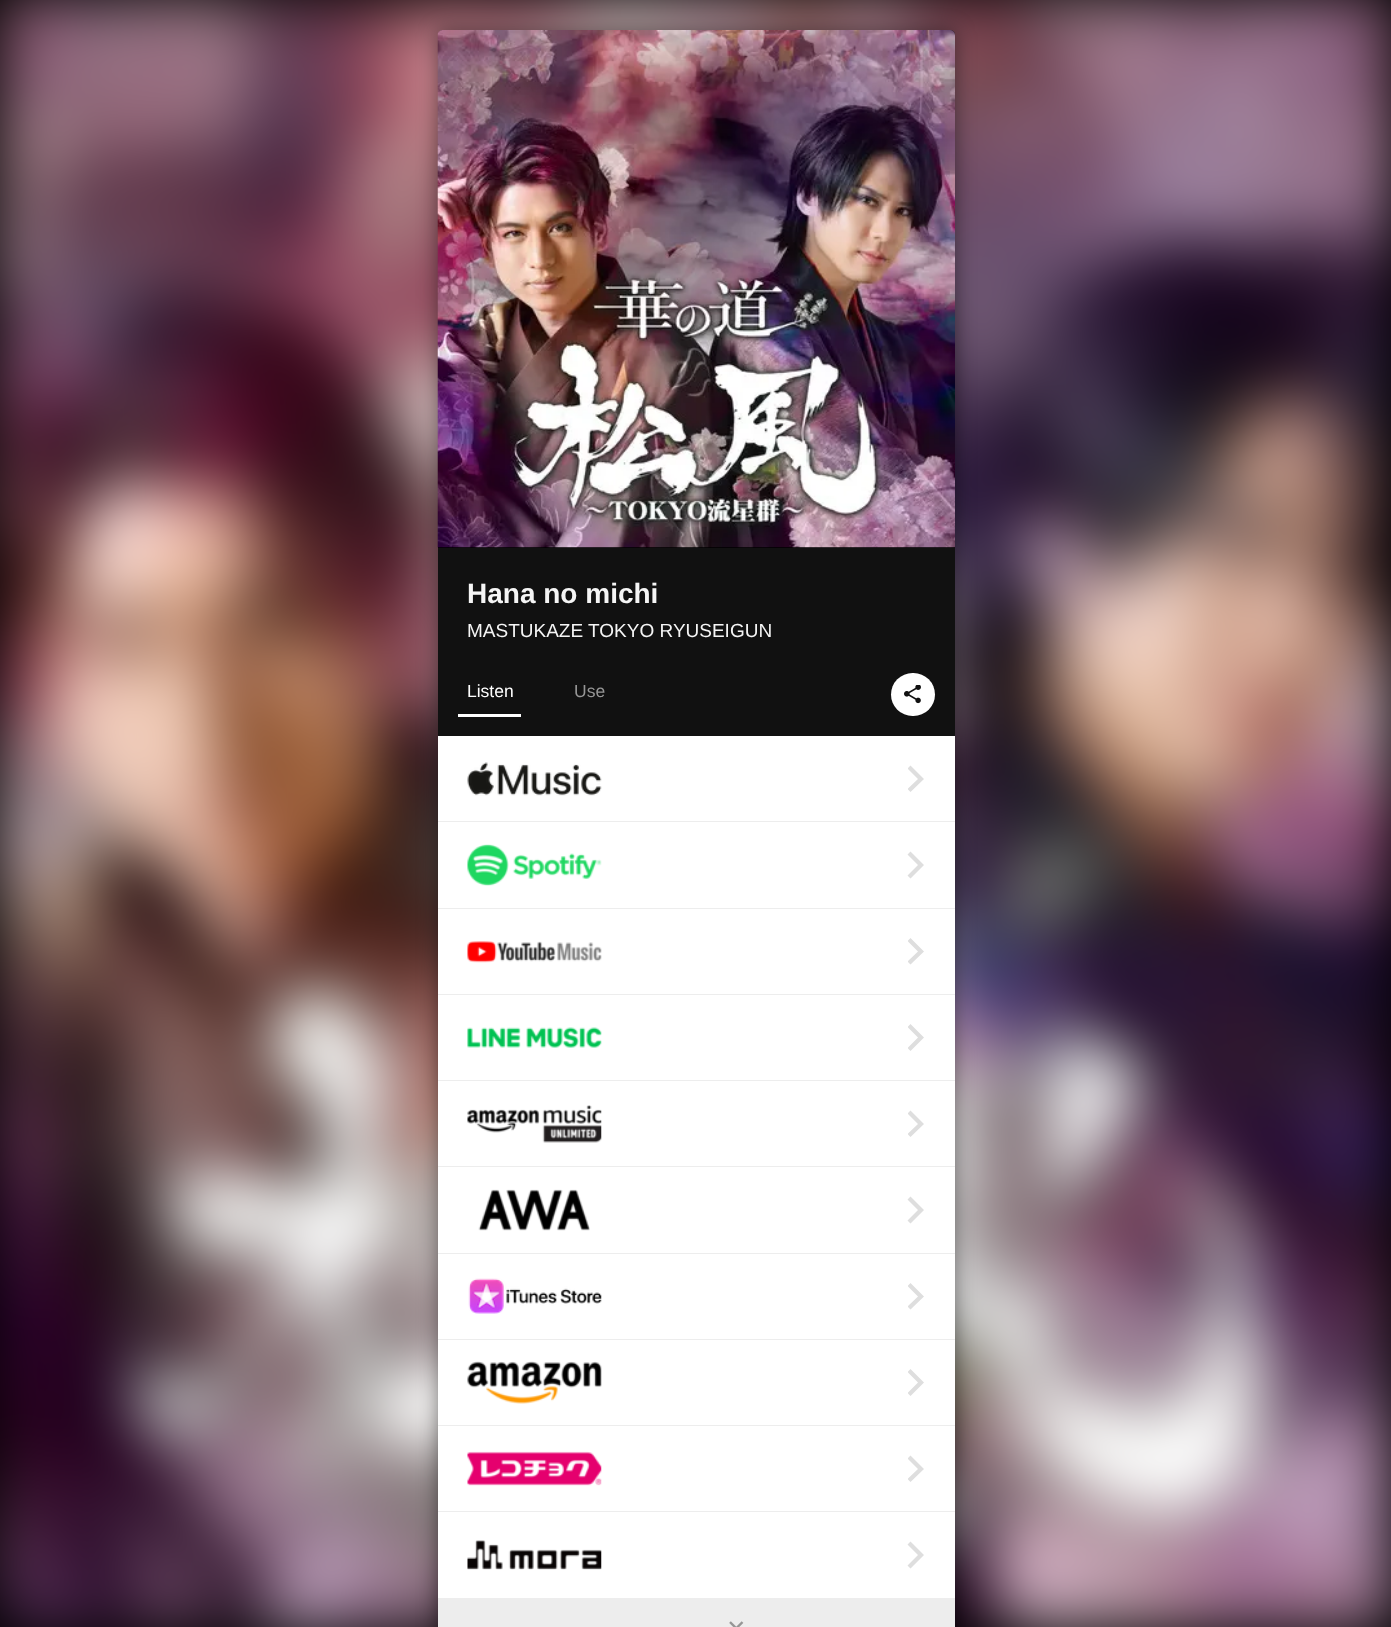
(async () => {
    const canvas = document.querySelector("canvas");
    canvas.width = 1391;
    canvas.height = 1627;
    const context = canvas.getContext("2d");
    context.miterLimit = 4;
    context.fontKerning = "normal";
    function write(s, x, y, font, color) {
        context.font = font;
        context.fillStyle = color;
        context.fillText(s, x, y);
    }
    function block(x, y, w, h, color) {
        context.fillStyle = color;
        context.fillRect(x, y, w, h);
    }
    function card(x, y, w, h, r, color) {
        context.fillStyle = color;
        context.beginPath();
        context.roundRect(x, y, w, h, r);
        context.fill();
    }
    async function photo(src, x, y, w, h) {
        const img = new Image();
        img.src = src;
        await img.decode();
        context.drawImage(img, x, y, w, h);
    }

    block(0, 0, 1391, 1627, "rgb(0, 0, 0)");
    await photo("media/1.png", 0, 0, 1391, 1627);
    context.fillStyle = "rgba(0, 0, 0, 0.47)";
    context.filter = "blur(10px)";
    context.beginPath();
    context.roundRect(438, 30, 517, 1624, 5);
    context.fill();
    context.filter = "none";
    context.fillStyle = "rgb(0, 0, 0)";
    context.beginPath();
    context.roundRect(438, 30, 517, 518, [5, 5, 0, 0]);
    context.fill();
    await photo("media/2.png", 437, 30, 518, 518);
    block(438, 548, 517, 188, "rgb(17, 17, 17)");
    write("Hana no michi", 467, 603, "bold 28px Liberation Sans", "rgb(245, 245, 245)");
    write("MASTUKAZE TOKYO RYUSEIGUN", 467, 637, "19px Liberation Sans", "rgb(245, 245, 245)");
    write("Listen", 467, 697, "17.5px Liberation Sans", "rgb(255, 255, 255)");
    block(458, 714, 63, 3, "rgb(255, 255, 255)");
    write("Use", 574, 697, "17.5px Liberation Sans", "rgb(150, 150, 150)");
    card(891, 673, 44, 43, 21.5, "rgb(255, 255, 255)");
    await photo("media/3.png", 904, 685, 17, 19);
    block(438, 736, 517, 862, "rgb(255, 255, 255)");
    await photo("media/4.png", 467, 762, 135, 34);
    context.save();
    context.beginPath();
    context.rect(908, 754, 17, 50);
    context.clip();
    context.fillStyle = "rgb(222, 222, 222)";
    context.beginPath();
    context.moveTo(907.5, 789);
    context.lineTo(918, 779);
    context.lineTo(907.5, 768.5);
    context.lineTo(910.5, 765.5);
    context.lineTo(924, 779);
    context.lineTo(910.5, 792);
    context.closePath();
    context.fill();
    context.restore();
    block(438, 821, 517, 1, "rgb(237, 237, 237)");
    await photo("media/5.png", 467, 844, 135, 42);
    context.fillStyle = "rgb(222, 222, 222)";
    context.beginPath();
    context.moveTo(907.5, 875.5);
    context.lineTo(918, 865);
    context.lineTo(907.5, 854.5);
    context.lineTo(910.5, 851.5);
    context.lineTo(924, 865);
    context.lineTo(910.5, 878.5);
    context.closePath();
    context.fill();
    block(438, 908, 517, 1, "rgb(237, 237, 237)");
    await photo("media/6.png", 467, 941, 135, 22);
    context.save();
    context.beginPath();
    context.rect(908, 926, 17, 50);
    context.clip();
    context.fillStyle = "rgb(222, 222, 222)";
    context.beginPath();
    context.moveTo(907.5, 961.5);
    context.lineTo(918, 951.5);
    context.lineTo(907.5, 941);
    context.lineTo(910.5, 938);
    context.lineTo(924, 951.5);
    context.lineTo(910.5, 964.5);
    context.closePath();
    context.fill();
    context.restore();
    block(438, 994, 517, 1, "rgb(237, 237, 237)");
    await photo("media/7.png", 467, 1027, 135, 21);
    context.save();
    context.beginPath();
    context.rect(908, 1013, 17, 50);
    context.clip();
    context.fillStyle = "rgb(222, 222, 222)";
    context.beginPath();
    context.moveTo(907.5, 1048);
    context.lineTo(918, 1037.5);
    context.lineTo(907.5, 1027);
    context.lineTo(910.5, 1024);
    context.lineTo(924, 1037.5);
    context.lineTo(910.5, 1051);
    context.closePath();
    context.fill();
    context.restore();
    block(438, 1080, 517, 1, "rgb(237, 237, 237)");
    await photo("media/8.png", 467, 1105, 135, 38);
    context.save();
    context.beginPath();
    context.rect(908, 1099, 17, 50);
    context.clip();
    context.fillStyle = "rgb(222, 222, 222)";
    context.beginPath();
    context.moveTo(907.5, 1134);
    context.lineTo(918, 1124);
    context.lineTo(907.5, 1113.5);
    context.lineTo(910.5, 1110.5);
    context.lineTo(924, 1124);
    context.lineTo(910.5, 1137);
    context.closePath();
    context.fill();
    context.restore();
    block(438, 1166, 517, 1, "rgb(237, 237, 237)");
    await photo("media/9.png", 478, 1189, 112, 42);
    context.fillStyle = "rgb(222, 222, 222)";
    context.beginPath();
    context.moveTo(907.5, 1220.5);
    context.lineTo(918, 1210);
    context.lineTo(907.5, 1199.5);
    context.lineTo(910.5, 1196.5);
    context.lineTo(924, 1210);
    context.lineTo(910.5, 1223.5);
    context.closePath();
    context.fill();
    block(438, 1253, 517, 1, "rgb(237, 237, 237)");
    await photo("media/10.png", 468, 1278, 134, 36);
    context.save();
    context.beginPath();
    context.rect(908, 1271, 17, 50);
    context.clip();
    context.fillStyle = "rgb(222, 222, 222)";
    context.beginPath();
    context.moveTo(907.5, 1306.5);
    context.lineTo(918, 1296.5);
    context.lineTo(907.5, 1286);
    context.lineTo(910.5, 1283);
    context.lineTo(924, 1296.5);
    context.lineTo(910.5, 1309.5);
    context.closePath();
    context.fill();
    context.restore();
    block(438, 1339, 517, 1, "rgb(237, 237, 237)");
    await photo("media/11.png", 467, 1361, 135, 43);
    context.save();
    context.beginPath();
    context.rect(908, 1358, 17, 50);
    context.clip();
    context.fillStyle = "rgb(222, 222, 222)";
    context.beginPath();
    context.moveTo(907.5, 1393);
    context.lineTo(918, 1382.5);
    context.lineTo(907.5, 1372);
    context.lineTo(910.5, 1369);
    context.lineTo(924, 1382.5);
    context.lineTo(910.5, 1396);
    context.closePath();
    context.fill();
    context.restore();
    block(438, 1425, 517, 1, "rgb(237, 237, 237)");
    await photo("media/12.png", 467, 1451, 135, 35);
    context.save();
    context.beginPath();
    context.rect(908, 1444, 17, 50);
    context.clip();
    context.fillStyle = "rgb(222, 222, 222)";
    context.beginPath();
    context.moveTo(907.5, 1479);
    context.lineTo(918, 1469);
    context.lineTo(907.5, 1458.5);
    context.lineTo(910.5, 1455.5);
    context.lineTo(924, 1469);
    context.lineTo(910.5, 1482);
    context.closePath();
    context.fill();
    context.restore();
    block(438, 1511, 517, 1, "rgb(237, 237, 237)");
    await photo("media/13.png", 467, 1540, 135, 30);
    context.fillStyle = "rgb(222, 222, 222)";
    context.beginPath();
    context.moveTo(907.5, 1565.5);
    context.lineTo(918, 1555);
    context.lineTo(907.5, 1544.5);
    context.lineTo(910.5, 1541.5);
    context.lineTo(924, 1555);
    context.lineTo(910.5, 1568.5);
    context.closePath();
    context.fill();
    block(438, 1598, 517, 29, "rgb(237, 237, 237)");
    await photo("media/14.png", 729, 1621, 15, 6);
})();
